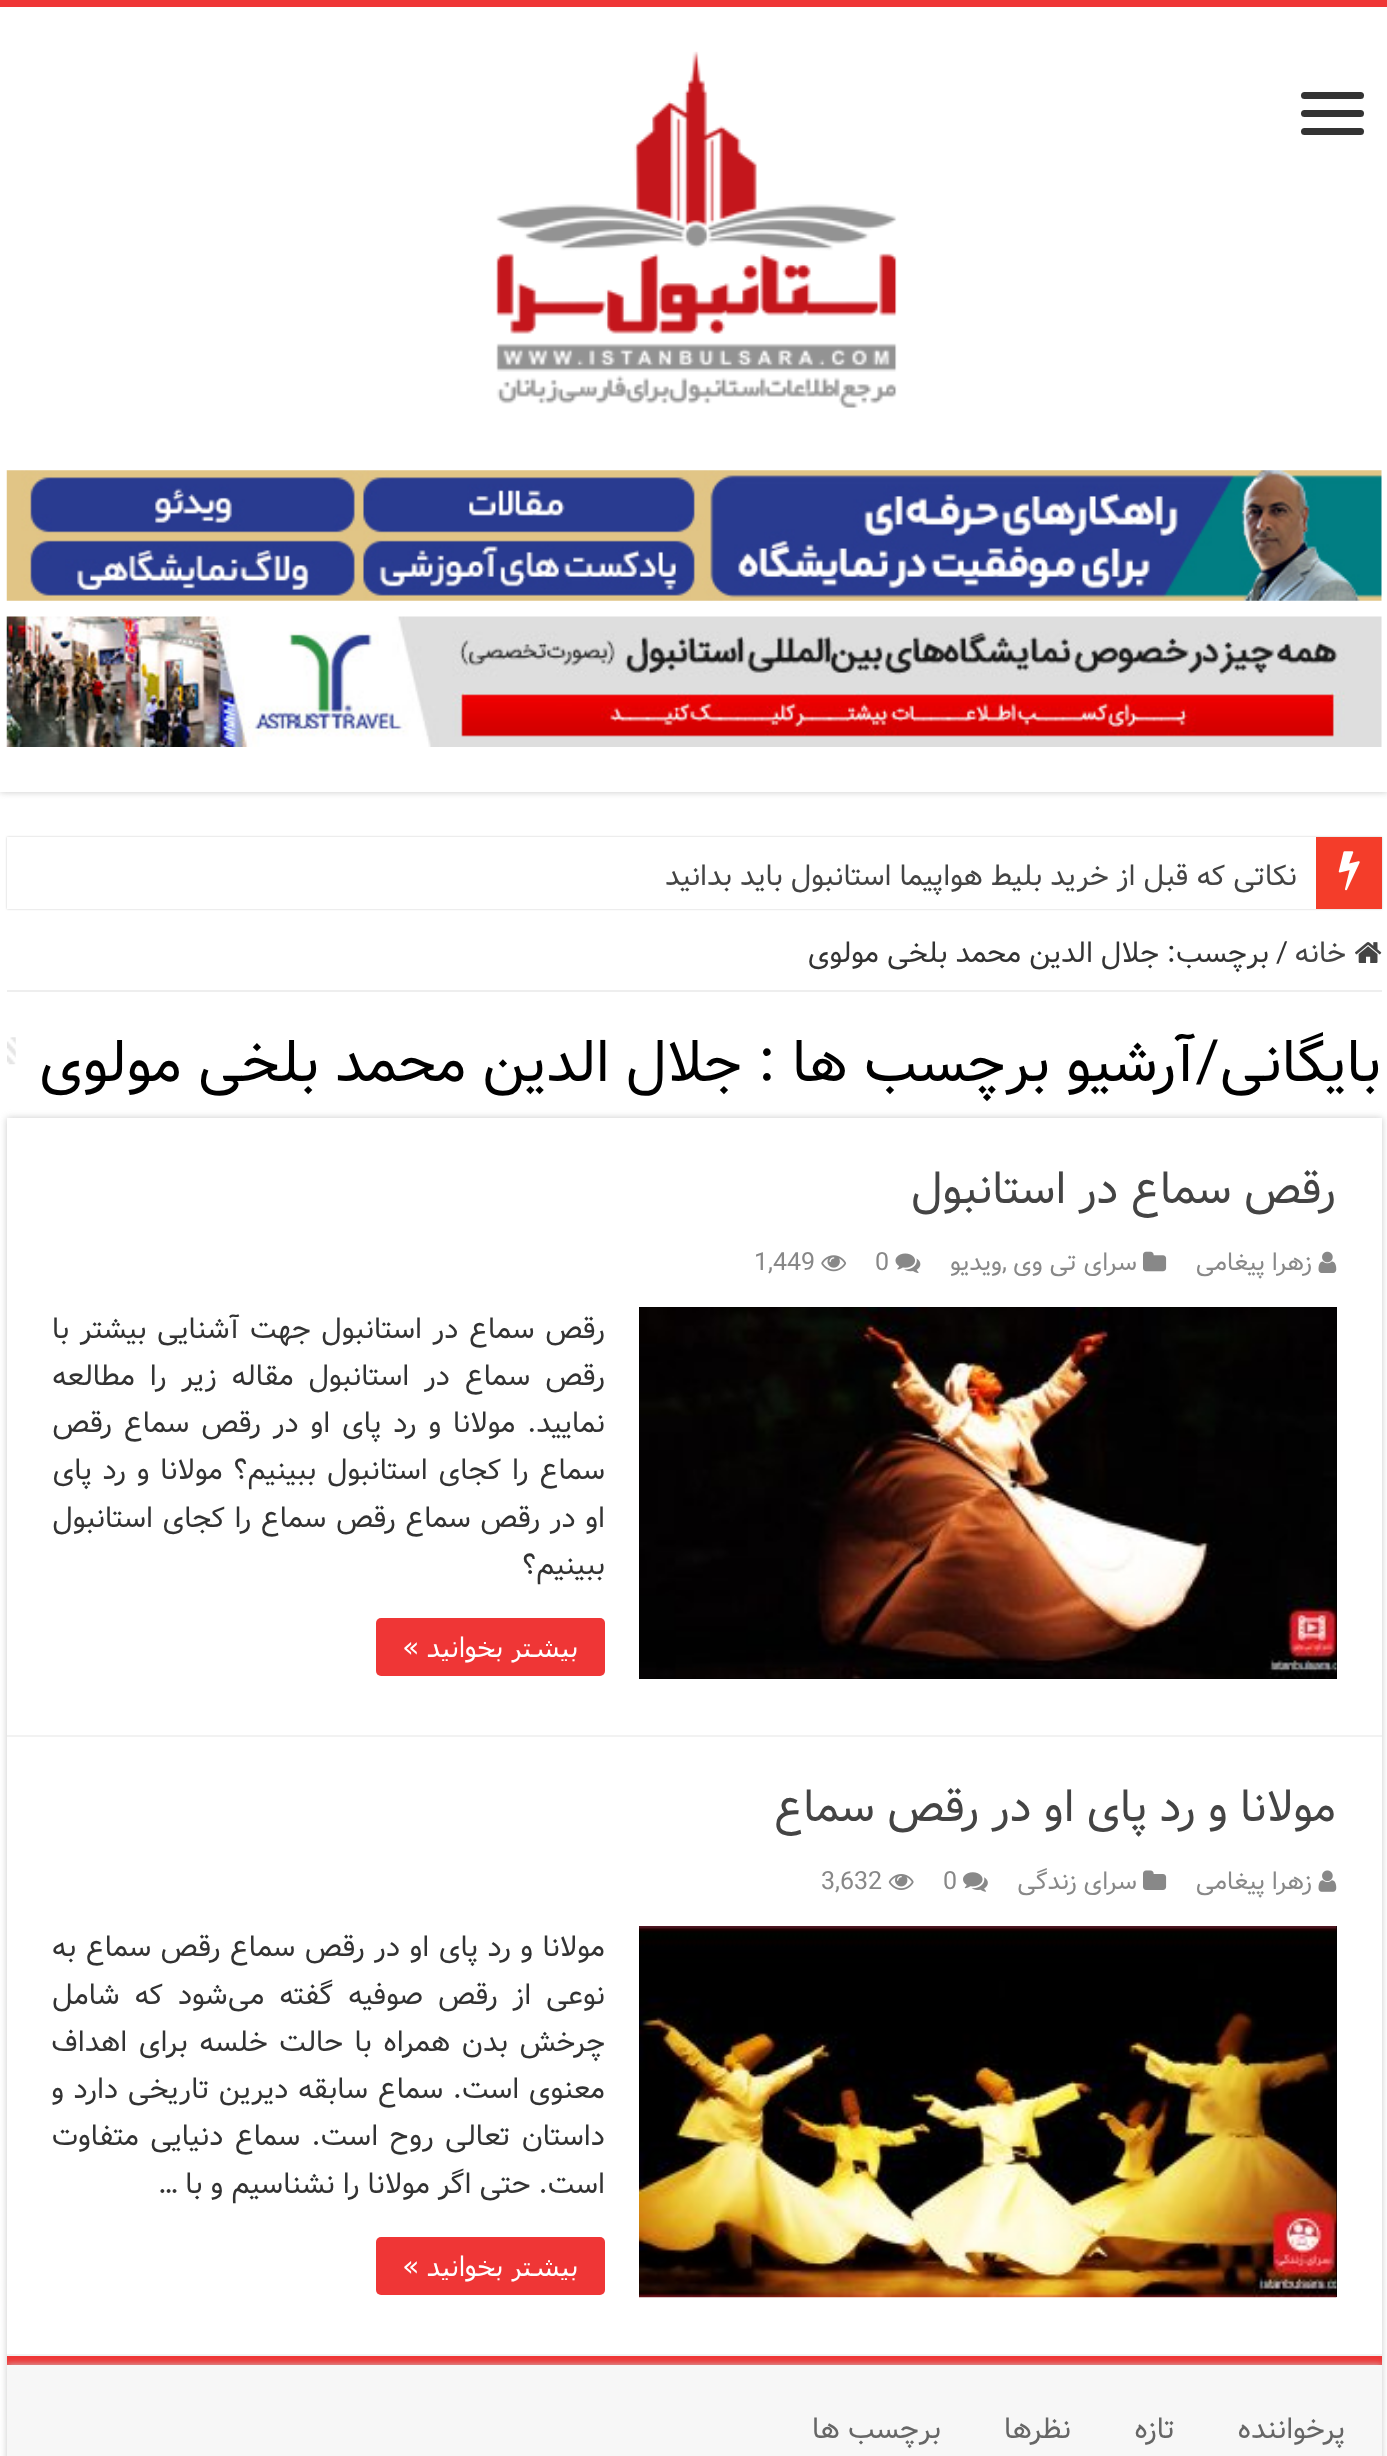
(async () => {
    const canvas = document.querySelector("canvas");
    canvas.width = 1387;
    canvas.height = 2456;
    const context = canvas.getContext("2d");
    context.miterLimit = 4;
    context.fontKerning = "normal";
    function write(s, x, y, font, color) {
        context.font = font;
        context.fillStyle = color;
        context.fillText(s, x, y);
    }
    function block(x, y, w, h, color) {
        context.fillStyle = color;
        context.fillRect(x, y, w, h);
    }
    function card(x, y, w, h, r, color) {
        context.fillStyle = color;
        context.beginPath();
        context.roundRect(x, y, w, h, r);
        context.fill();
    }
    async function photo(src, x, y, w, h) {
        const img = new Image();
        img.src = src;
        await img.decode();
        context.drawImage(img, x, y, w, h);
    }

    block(0, 0, 1387, 2456, "rgb(255, 255, 255)");
    context.save();
    context.beginPath();
    context.rect(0, 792, 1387, 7);
    context.clip();
    context.fillStyle = "rgb(202, 202, 202)";
    context.filter = "blur(3.5px)";
    context.beginPath();
    context.rect(0, 0, 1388, 792);
    context.fill();
    context.filter = "none";
    context.restore();
    block(0, 0, 1387, 7, "rgb(239, 54, 54)");
    card(1301, 92, 63, 7, 3.5, "rgb(51, 51, 51)");
    card(1301, 110, 63, 7, 3.5, "rgb(51, 51, 51)");
    card(1301, 128, 63, 7, 3.5, "rgb(51, 51, 51)");
    await photo("media/1.png", 496, 51, 401, 357);
    await photo("media/2.png", 6, 470, 1376, 131);
    await photo("media/3.png", 6, 616, 1376, 131);
    context.fillStyle = "rgb(202, 202, 202)";
    context.filter = "blur(1px)";
    context.beginPath();
    context.rect(7, 837, 1375, 72);
    context.fill();
    context.filter = "none";
    block(7, 837, 1309, 72, "rgb(255, 255, 255)");
    block(1316, 837, 66, 72, "rgb(244, 61, 42)");
    await photo("media/4.png", 1338, 851, 22, 40);
    context.direction = "rtl";
    write("نکاتی که قبل از خرید بلیط هواپیما استانبول باید بدانید", 1297, 885, "29.25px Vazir", "rgb(68, 68, 68)");
    block(7, 990, 1375, 2, "rgb(238, 238, 238)");
    await photo("media/5.png", 1355, 942, 27, 21);
    write("خانه", 1346, 962, "29.25px Vazir", "rgb(68, 68, 68)");
    context.direction = "ltr";
    write("/", 1276, 962, "29.25px Vazir", "rgb(51, 51, 51)");
    context.direction = "rtl";
    write("برچسب:", 1269, 962, "29.25px Vazir", "rgb(51, 51, 51)");
    write("جلال الدین محمد بلخی مولوی", 1159, 962, "29.25px Vazir", "rgb(51, 51, 51)");
    write("بایگانی/آرشیو برچسب ها :", 1381, 1081, "58.5px Vazir", "rgb(0, 0, 0)");
    write("جلال الدین محمد بلخی مولوی", 742, 1081, "58.5px Vazir", "rgb(0, 0, 0)");
    await photo("media/6.png", 7, 1037, 9, 28);
    context.fillStyle = "rgb(202, 202, 202)";
    context.filter = "blur(3.5px)";
    context.beginPath();
    context.rect(7, 1118, 1375, 1247);
    context.fill();
    context.filter = "none";
    block(7, 1118, 1375, 1236, "rgb(255, 255, 255)");
    block(7, 2356, 1375, 9, "rgb(239, 54, 54)");
    block(7, 1735, 1375, 2, "rgb(242, 242, 242)");
    write("رقص سماع در استانبول", 1336, 1203, "45px Vazir", "rgb(68, 68, 68)");
    await photo("media/7.png", 1318, 1251, 19, 22);
    write("زهرا پیغامی", 1312, 1270, "25px Vazir", "rgb(136, 136, 136)");
    await photo("media/8.png", 1143, 1251, 24, 21);
    write("سرای تی وی", 1137, 1270, "25px Vazir", "rgb(136, 136, 136)");
    context.direction = "ltr";
    write(",", 1002, 1270, "25px Vazir", "rgb(136, 136, 136)");
    context.direction = "rtl";
    write("ویدیو", 1002, 1270, "25px Vazir", "rgb(136, 136, 136)");
    await photo("media/9.png", 895, 1253, 26, 20);
    context.direction = "ltr";
    write("0", 875, 1270, "25px Vazir", "rgb(136, 136, 136)");
    await photo("media/10.png", 821, 1255, 26, 17);
    write("1,449", 754, 1270, "25px Vazir", "rgb(136, 136, 136)");
    block(639, 1307, 698, 372, "rgb(0, 0, 0)");
    await photo("media/11.png", 639, 1307, 698, 372);
    context.wordSpacing = "2.5px";
    context.direction = "rtl";
    write("رقص سماع در استانبول جهت آشنایی بیشتر با", 605, 1338, "29.25px Vazir", "rgb(51, 51, 51)");
    context.wordSpacing = "6.75px";
    write("رقص سماع در استانبول مقاله زیر را مطالعه", 605, 1385, "29.25px Vazir", "rgb(51, 51, 51)");
    context.wordSpacing = "3.75px";
    write("نمایید. مولانا و رد پای او در رقص سماع رقص", 605, 1432, "29.25px Vazir", "rgb(51, 51, 51)");
    context.wordSpacing = "2.75px";
    write("سماع را کجای استانبول ببینیم؟ مولانا و رد پای", 605, 1479, "29.25px Vazir", "rgb(51, 51, 51)");
    context.wordSpacing = "1.5px";
    write("او در رقص سماع رقص سماع را کجای استانبول", 605, 1527, "29.25px Vazir", "rgb(51, 51, 51)");
    context.wordSpacing = "0px";
    write("ببینیم؟", 605, 1574, "29.25px Vazir", "rgb(51, 51, 51)");
    card(376, 1618, 229, 58, 5, "rgb(239, 54, 54)");
    write("بیشتر بخوانید »", 578, 1657, "27px Tahoma", "rgb(255, 255, 255)");
    block(7, 2354, 1375, 2, "rgb(242, 242, 242)");
    write("مولانا و رد پای او در رقص سماع", 1336, 1821, "45px Vazir", "rgb(68, 68, 68)");
    await photo("media/12.png", 1318, 1870, 19, 22);
    write("زهرا پیغامی", 1312, 1889, "25px Vazir", "rgb(136, 136, 136)");
    await photo("media/13.png", 1143, 1870, 24, 20);
    write("سرای زندگی", 1137, 1889, "25px Vazir", "rgb(136, 136, 136)");
    await photo("media/14.png", 963, 1872, 25, 20);
    context.direction = "ltr";
    write("0", 943, 1889, "25px Vazir", "rgb(136, 136, 136)");
    await photo("media/15.png", 888, 1874, 26, 16);
    write("3,632", 821, 1889, "25px Vazir", "rgb(136, 136, 136)");
    block(1336, 1926, 1, 371, "rgb(0, 0, 0)");
    await photo("media/16.png", 639, 1926, 698, 372);
    context.wordSpacing = "1.4px";
    context.direction = "rtl";
    write("مولانا و رد پای او در رقص سماع رقص سماع به", 605, 1956, "29.25px Vazir", "rgb(51, 51, 51)");
    context.wordSpacing = "6.75px";
    write("نوعی از رقص صوفیه گفته می‌شود که شامل", 605, 2004, "29.25px Vazir", "rgb(51, 51, 51)");
    context.wordSpacing = "3.5px";
    write("چرخش بدن همراه با حالت خلسه برای اهداف", 605, 2051, "29.25px Vazir", "rgb(51, 51, 51)");
    context.wordSpacing = "1.5px";
    write("معنوی است. سماع سابقه دیرین تاریخی دارد و", 605, 2098, "29.25px Vazir", "rgb(51, 51, 51)");
    context.wordSpacing = "3.25px";
    write("داستان تعالی روح است. سماع دنیایی متفاوت", 605, 2145, "29.25px Vazir", "rgb(51, 51, 51)");
    context.wordSpacing = "0px";
    write("است. حتی اگر مولانا را نشناسیم و با …", 605, 2193, "29.25px Vazir", "rgb(51, 51, 51)");
    card(376, 2237, 229, 58, 5, "rgb(239, 54, 54)");
    write("بیشتر بخوانید »", 578, 2276, "27px Tahoma", "rgb(255, 255, 255)");
    context.fillStyle = "rgb(202, 202, 202)";
    context.filter = "blur(3.5px)";
    context.beginPath();
    context.rect(7, 2365, 1375, 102);
    context.fill();
    context.filter = "none";
    block(7, 2365, 1375, 91, "rgb(247, 247, 247)");
    write("پرخواننده", 1345, 2438, "29.25px Vazir", "rgb(102, 102, 102)");
    write("تازه", 1175, 2438, "29.25px Vazir", "rgb(102, 102, 102)");
    write("نظرها", 1071, 2438, "29.25px Vazir", "rgb(102, 102, 102)");
    write("برچسب ها", 941, 2438, "29.25px Vazir", "rgb(102, 102, 102)");
})();
